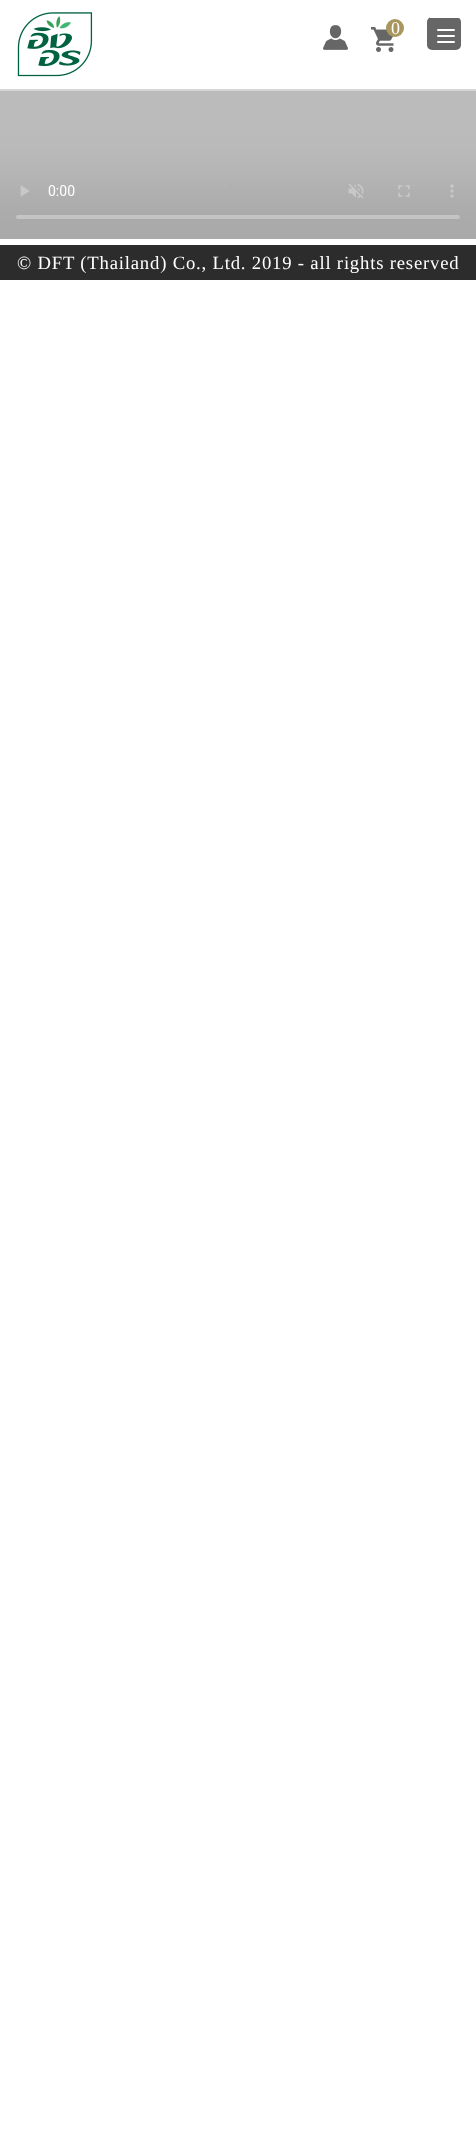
(async () => {
    const canvas = document.querySelector("canvas");
    canvas.width = 476;
    canvas.height = 2155;
    const context = canvas.getContext("2d");
    context.miterLimit = 4;
    context.fontKerning = "normal";
    function write(s, x, y, font, color) {
        context.font = font;
        context.fillStyle = color;
        context.fillText(s, x, y);
    }
    function block(x, y, w, h, color) {
        context.fillStyle = color;
        context.fillRect(x, y, w, h);
    }
    function card(x, y, w, h, r, color) {
        context.fillStyle = color;
        context.beginPath();
        context.roundRect(x, y, w, h, r);
        context.fill();
    }
    async function photo(src, x, y, w, h) {
        const img = new Image();
        img.src = src;
        await img.decode();
        context.drawImage(img, x, y, w, h);
    }

    block(0, 0, 476, 2155, "rgb(255, 255, 255)");
    await photo("media/1.png", 17, 12, 76, 65);
    card(427, 17, 34, 33, 5, "rgb(102, 102, 102)");
    block(430, 17, 29, 1, "rgb(255, 255, 255)");
    await photo("media/2.png", 323, 25, 25, 25);
    await photo("media/3.png", 371, 27, 23, 25);
    context.fillStyle = "rgb(169, 150, 95)";
    context.beginPath();
    context.arc(395, 28, 9, 0, Math.PI * 2);
    context.fill();
    write("0", 391, 34, "18px Liberation Serif", "rgb(255, 255, 255)");
    card(437, 29, 18, 2, 1, "rgb(255, 255, 255)");
    card(437, 35, 18, 2, 1, "rgb(255, 255, 255)");
    card(437, 41, 18, 2, 1, "rgb(255, 255, 255)");
    block(0, 89, 476, 2, "rgb(214, 214, 214)");
    await photo("media/4.png", 0, 91, 476, 148);
    block(0, 245, 476, 35, "rgb(44, 44, 44)");
    context.letterSpacing = "0.8px";
    write("© DFT (Thailand) Co., Ltd. 2019 - all rights reserved", 17, 269, "18.7px Liberation Serif", "rgb(255, 255, 255)");
})();
